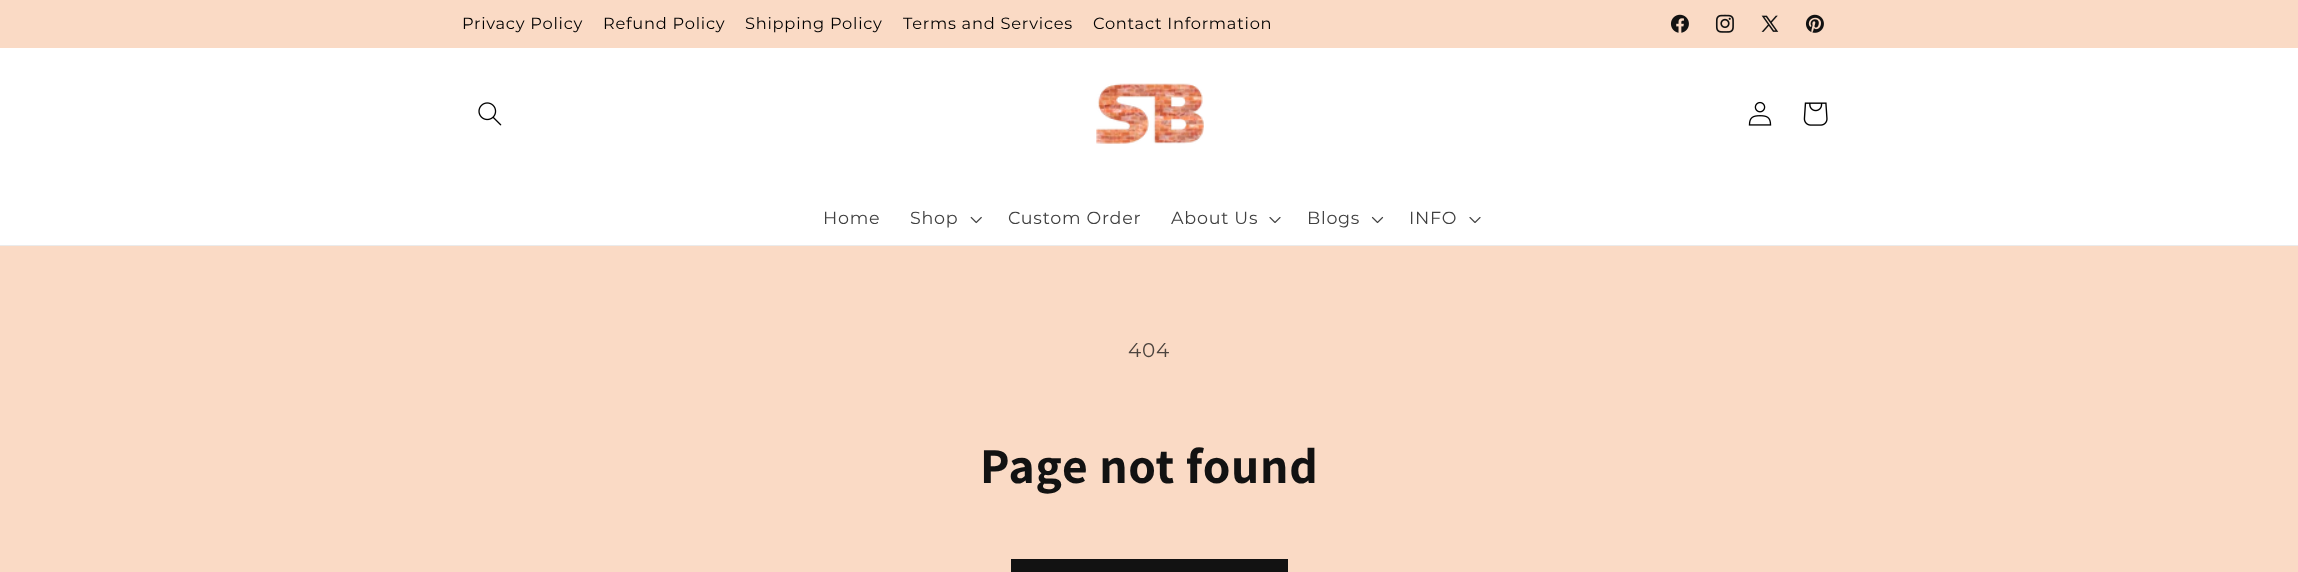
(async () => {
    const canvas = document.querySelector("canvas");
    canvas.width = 2298;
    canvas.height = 572;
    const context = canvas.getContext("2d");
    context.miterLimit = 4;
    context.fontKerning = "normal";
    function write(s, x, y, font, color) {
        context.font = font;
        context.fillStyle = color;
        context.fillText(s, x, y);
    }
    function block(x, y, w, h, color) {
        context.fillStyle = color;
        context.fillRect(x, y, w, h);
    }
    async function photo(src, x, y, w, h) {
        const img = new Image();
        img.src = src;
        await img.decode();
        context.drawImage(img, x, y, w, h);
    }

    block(0, 0, 2298, 572, "rgb(250, 218, 197)");
    context.letterSpacing = "0.75px";
    write("Privacy Policy", 462, 29, "16.25px Montserrat", "rgb(0, 0, 0)");
    write("Refund Policy", 603, 29, "16.25px Montserrat", "rgb(0, 0, 0)");
    write("Shipping Policy", 745, 29, "16.25px Montserrat", "rgb(0, 0, 0)");
    write("Terms and Services", 903, 29, "16.25px Montserrat", "rgb(0, 0, 0)");
    write("Contact Information", 1093, 29, "16.25px Montserrat", "rgb(0, 0, 0)");
    await photo("media/1.png", 1670, 14, 19, 19);
    await photo("media/2.png", 1715, 14, 19, 19);
    await photo("media/3.png", 1761, 15, 18, 17);
    await photo("media/4.png", 1805, 14, 19, 19);
    block(0, 48, 2298, 197, "rgb(255, 255, 255)");
    block(0, 245, 2298, 1, "rgb(235, 235, 235)");
    await photo("media/5.png", 478, 102, 24, 24);
    await photo("media/6.png", 1096, 83, 108, 61);
    await photo("media/7.png", 1748, 101, 24, 25);
    await photo("media/8.png", 1803, 102, 25, 24);
    write("Home", 823, 224, "17.5px Montserrat", "rgb(64, 64, 64)");
    write("Shop", 910, 224, "17.5px Montserrat", "rgb(64, 64, 64)");
    await photo("media/9.png", 970, 216, 12, 8);
    write("Custom Order", 1008, 224, "17.5px Montserrat", "rgb(64, 64, 64)");
    write("About Us", 1171, 224, "17.5px Montserrat", "rgb(64, 64, 64)");
    await photo("media/10.png", 1269, 217, 12, 6);
    write("Blogs", 1307, 224, "17.5px Montserrat", "rgb(64, 64, 64)");
    await photo("media/11.png", 1371, 216, 13, 8);
    write("INFO", 1409, 224, "17.5px Montserrat", "rgb(64, 64, 64)");
    await photo("media/10.png", 1469, 217, 12, 6);
    write("404", 1128, 357, "20px Montserrat", "rgb(76, 68, 63)");
    write("Page not found", 980, 483, "bold 50px Assistant", "rgb(18, 18, 18)");
    block(1011, 559, 277, 13, "rgb(18, 18, 18)");
})();
